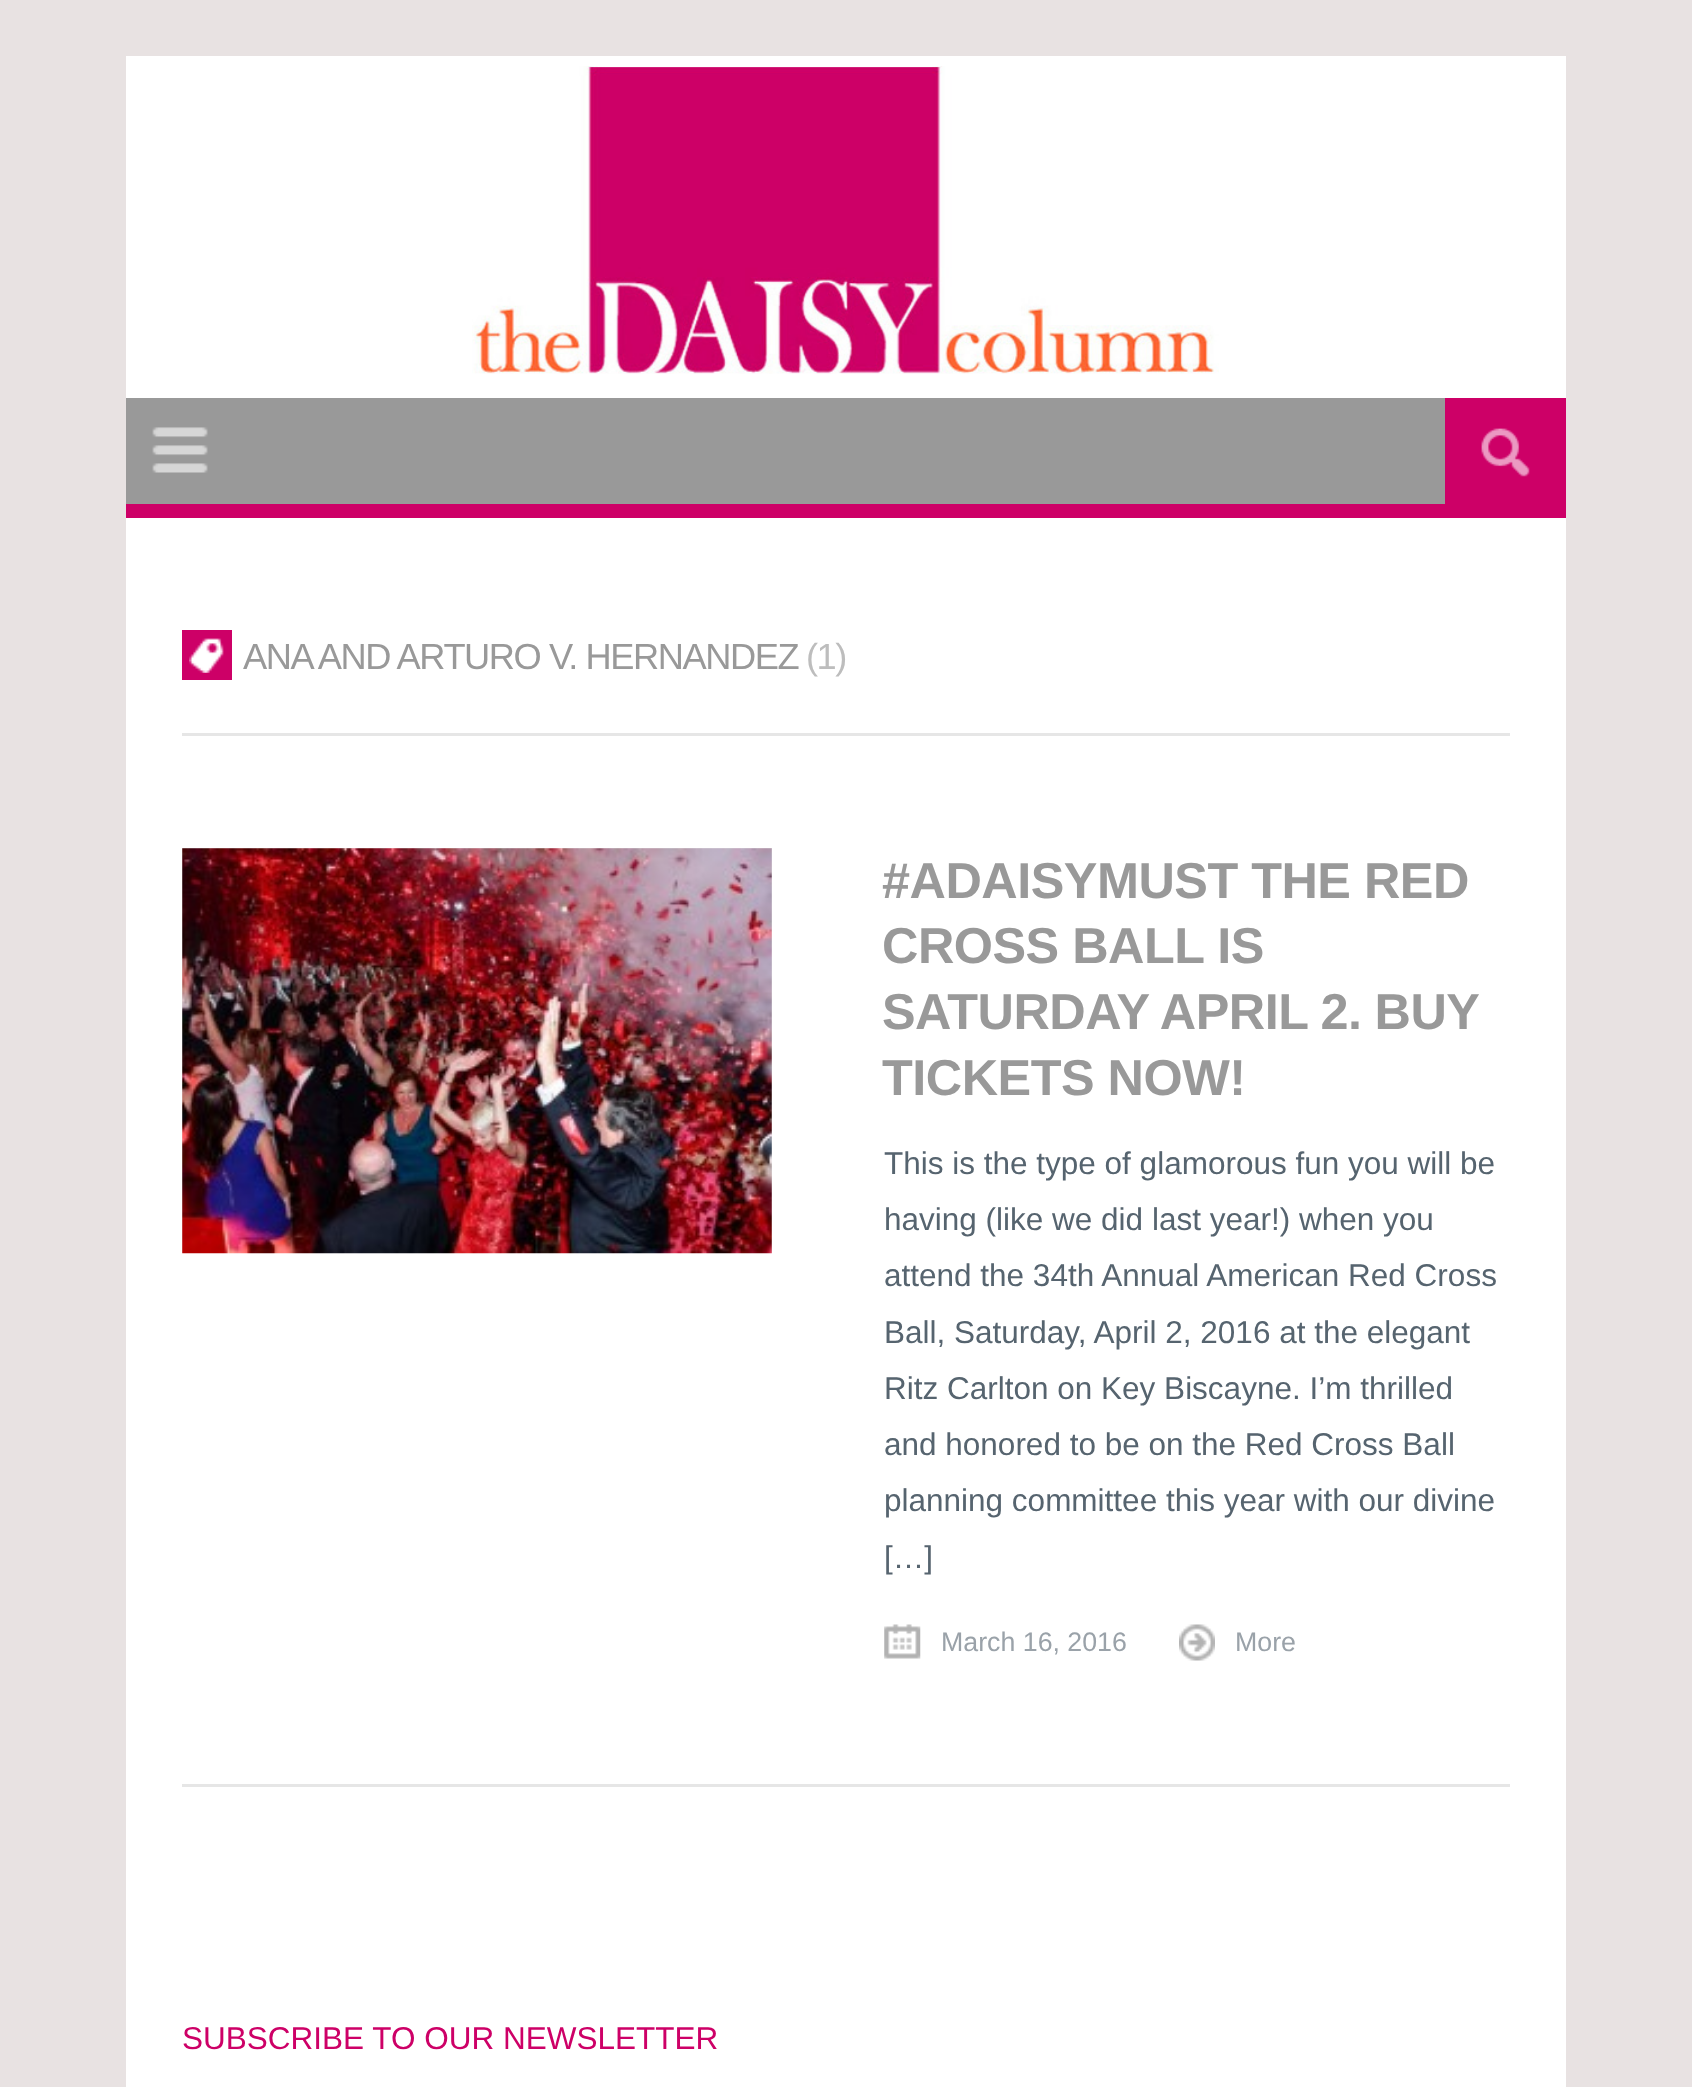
(async () => {
    const canvas = document.querySelector("canvas");
    canvas.width = 1692;
    canvas.height = 2087;
    const context = canvas.getContext("2d");
    context.miterLimit = 4;
    context.fontKerning = "normal";
    function write(s, x, y, font, color) {
        context.font = font;
        context.fillStyle = color;
        context.fillText(s, x, y);
    }
    function block(x, y, w, h, color) {
        context.fillStyle = color;
        context.fillRect(x, y, w, h);
    }
    async function photo(src, x, y, w, h) {
        const img = new Image();
        img.src = src;
        await img.decode();
        context.drawImage(img, x, y, w, h);
    }

    block(0, 0, 1692, 2087, "rgb(232, 226, 226)");
    block(126, 56, 1440, 2031, "rgb(255, 255, 255)");
    await photo("media/1.png", 472, 66, 747, 308);
    block(126, 398, 1319, 106, "rgb(153, 153, 153)");
    block(126, 504, 1440, 14, "rgb(205, 0, 103)");
    await photo("media/2.png", 152, 427, 56, 46);
    block(1445, 398, 121, 106, "rgb(205, 0, 103)");
    await photo("media/3.png", 1481, 428, 49, 49);
    block(182, 733, 1328, 3, "rgb(230, 230, 230)");
    block(182, 630, 50, 50, "rgb(205, 0, 103)");
    await photo("media/4.png", 189, 638, 35, 35);
    context.letterSpacing = "-1.45px";
    write("ANA AND ARTURO V. HERNANDEZ", 243, 669, "36.25px Liberation Sans", "rgb(153, 153, 153)");
    write("(1)", 806, 669, "36.25px Liberation Sans", "rgb(189, 189, 189)");
    block(182, 1784, 1328, 3, "rgb(230, 230, 230)");
    block(182, 848, 590, 405, "rgb(229, 229, 229)");
    await photo("media/5.png", 182, 848, 590, 406);
    context.letterSpacing = "-0.5px";
    write("#ADAISYMUST THE RED", 882, 898, "bold 50.4px Liberation Sans", "rgb(153, 153, 153)");
    write("CROSS BALL IS", 882, 963, "bold 50.4px Liberation Sans", "rgb(153, 153, 153)");
    context.wordSpacing = "-0.5px";
    write("SATURDAY APRIL 2. BUY", 882, 1029, "bold 50.4px Liberation Sans", "rgb(153, 153, 153)");
    context.wordSpacing = "0px";
    write("TICKETS NOW!", 882, 1095, "bold 50.4px Liberation Sans", "rgb(153, 153, 153)");
    context.letterSpacing = "0px";
    write("This is the type of glamorous fun you will be", 884, 1174, "31.5px Liberation Sans", "rgb(86, 100, 111)");
    write("having (like we did last year!) when you", 884, 1230, "31.5px Liberation Sans", "rgb(86, 100, 111)");
    write("attend the 34th Annual American Red Cross", 884, 1286, "31.5px Liberation Sans", "rgb(86, 100, 111)");
    write("Ball, Saturday, April 2, 2016 at the elegant", 884, 1343, "31.5px Liberation Sans", "rgb(86, 100, 111)");
    write("Ritz Carlton on Key Biscayne. I’m thrilled", 884, 1399, "31.5px Liberation Sans", "rgb(86, 100, 111)");
    write("and honored to be on the Red Cross Ball", 884, 1455, "31.5px Liberation Sans", "rgb(86, 100, 111)");
    write("planning committee this year with our divine", 884, 1511, "31.5px Liberation Sans", "rgb(86, 100, 111)");
    write("[…]", 884, 1568, "31.5px Liberation Sans", "rgb(86, 100, 111)");
    await photo("media/6.png", 884, 1624, 37, 35);
    write("March 16, 2016", 941, 1651, "26.75px Liberation Sans", "rgb(154, 162, 169)");
    await photo("media/7.png", 1179, 1624, 36, 37);
    write("More", 1235, 1651, "26.75px Liberation Sans", "rgb(154, 162, 169)");
    write("SUBSCRIBE TO OUR NEWSLETTER", 182, 2049, "31.5px Liberation Sans", "rgb(205, 0, 103)");
})();
